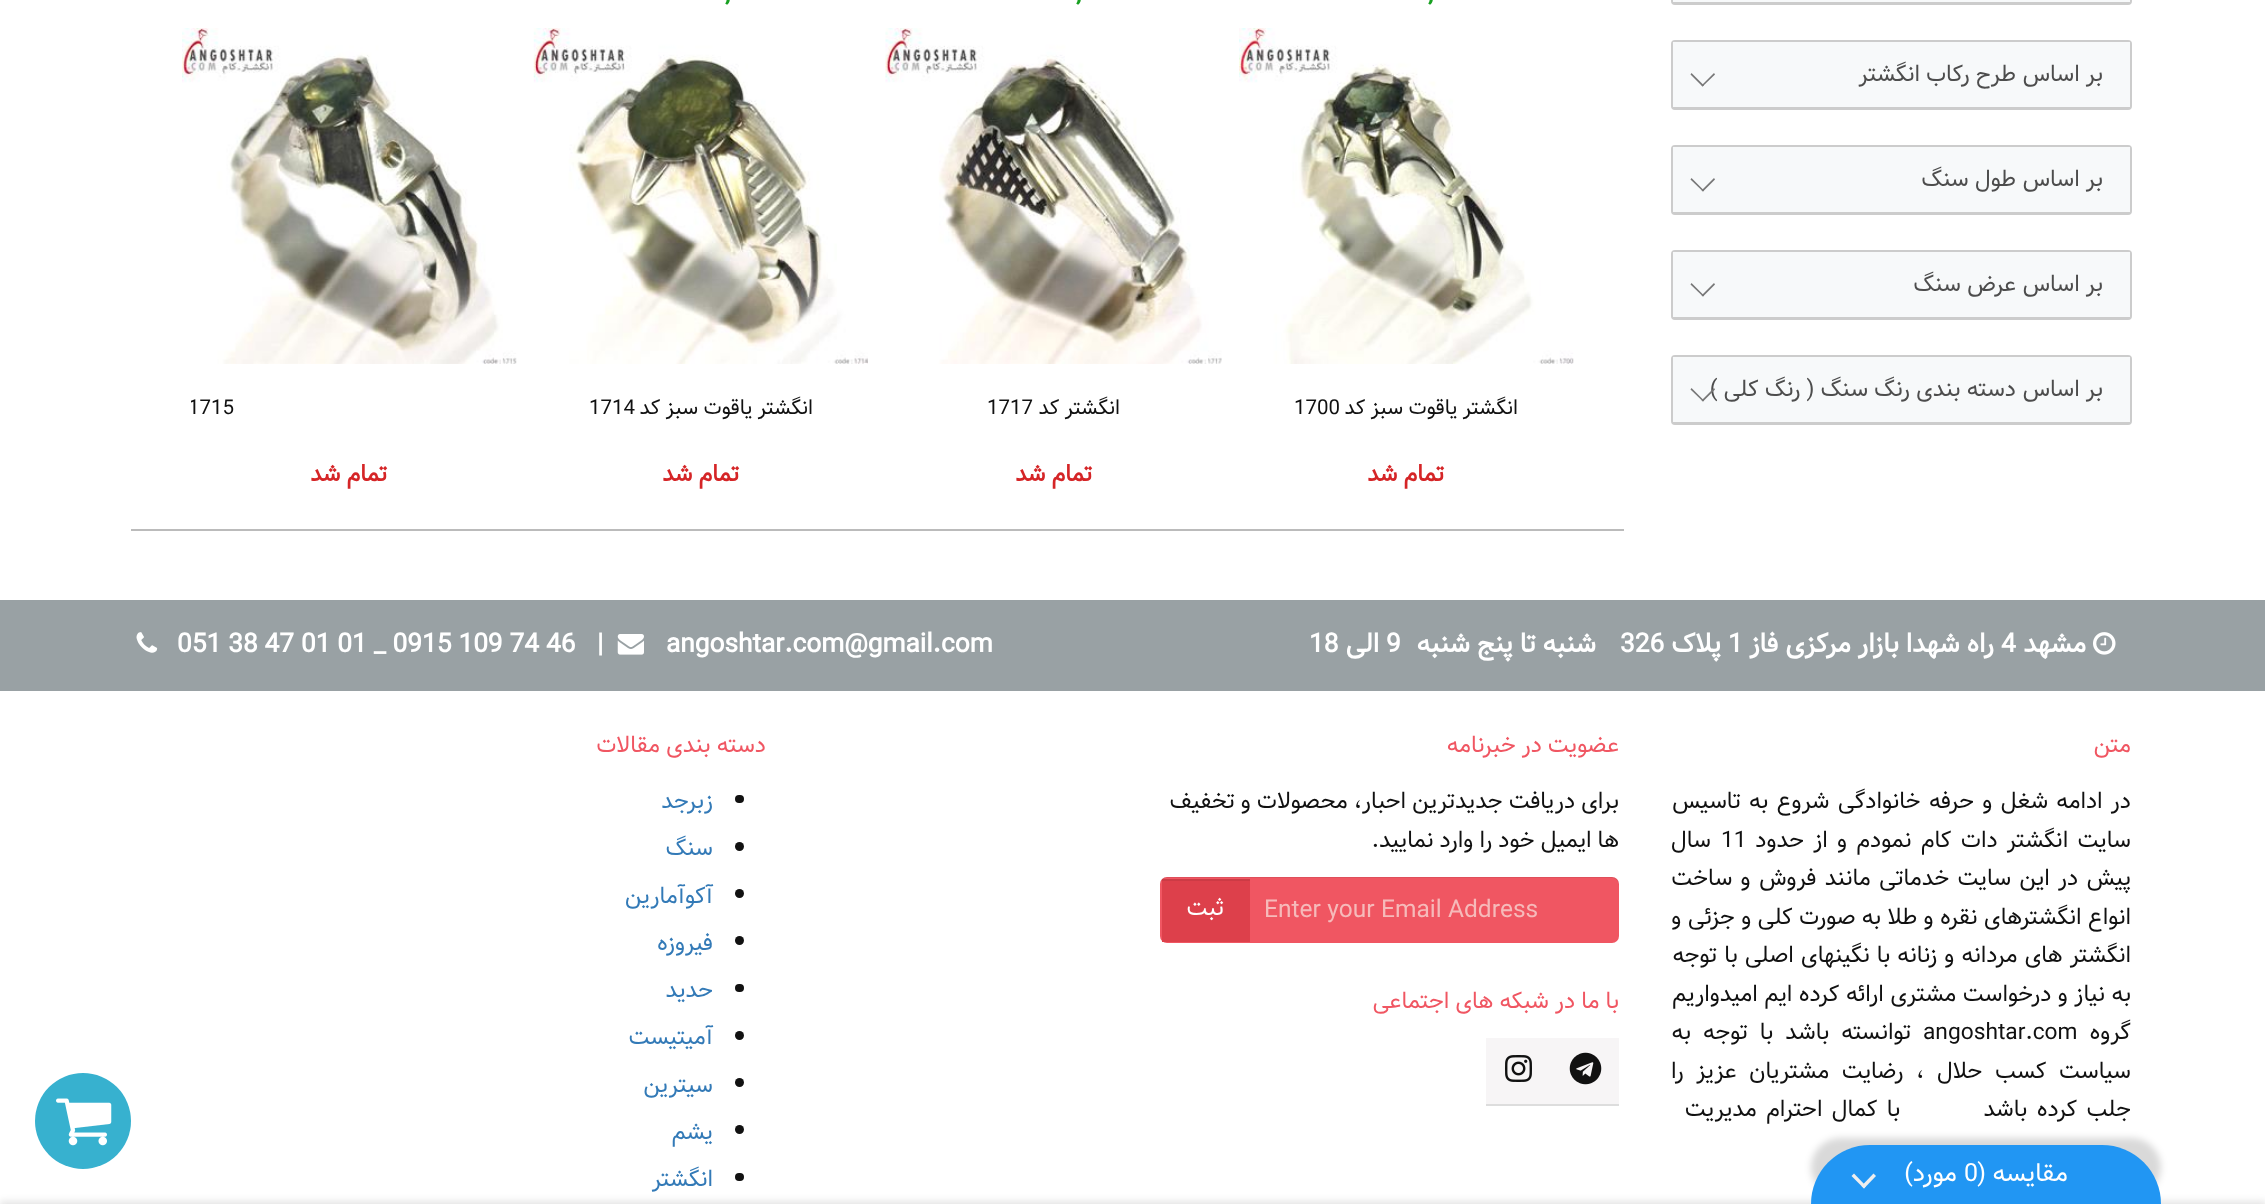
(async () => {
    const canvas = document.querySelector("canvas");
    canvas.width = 2265;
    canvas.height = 1204;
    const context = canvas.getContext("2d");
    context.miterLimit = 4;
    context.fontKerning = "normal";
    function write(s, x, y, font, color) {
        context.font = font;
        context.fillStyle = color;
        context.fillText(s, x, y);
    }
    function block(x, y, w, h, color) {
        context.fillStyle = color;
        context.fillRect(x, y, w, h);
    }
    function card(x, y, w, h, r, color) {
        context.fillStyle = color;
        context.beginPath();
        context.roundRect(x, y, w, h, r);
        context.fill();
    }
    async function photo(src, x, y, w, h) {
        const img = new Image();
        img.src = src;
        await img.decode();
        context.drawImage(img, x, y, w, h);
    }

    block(0, 0, 2265, 1204, "rgb(255, 255, 255)");
    context.beginPath();
    context.roundRect(1672, -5, 459, 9, 3);
    context.strokeStyle = "rgb(204, 204, 204)";
    context.lineWidth = 2;
    context.stroke();
    block(1673, 0, 457, 2, "rgb(247, 249, 250)");
    block(1673, 2, 457, 1, "rgb(204, 204, 204)");
    context.beginPath();
    context.roundRect(1672, 41, 459, 68, 3);
    context.stroke();
    block(1673, 42, 457, 65, "rgb(247, 249, 250)");
    block(1673, 107, 457, 1, "rgb(204, 204, 204)");
    context.direction = "rtl";
    write("بر اساس", 2103, 81, "22.75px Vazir", "rgb(77, 77, 77)");
    write("طرح رکاب انگشتر", 2016, 81, "22.75px Vazir", "rgb(77, 77, 77)");
    context.fillStyle = "rgb(119, 119, 119)";
    context.beginPath();
    context.moveTo(1714, 73);
    context.lineTo(1715, 74.5);
    context.lineTo(1702.5, 86.5);
    context.lineTo(1701.5, 85.5);
    context.closePath();
    context.fill();
    context.beginPath();
    context.moveTo(1691.5, 73);
    context.lineTo(1704, 85.5);
    context.lineTo(1702.5, 86.5);
    context.lineTo(1690.5, 74.5);
    context.closePath();
    context.fill();
    context.beginPath();
    context.roundRect(1672, 146, 459, 68, 3);
    context.stroke();
    block(1673, 147, 457, 65, "rgb(247, 249, 250)");
    block(1673, 212, 457, 1, "rgb(204, 204, 204)");
    write("بر اساس", 2103, 186, "22.75px Vazir", "rgb(77, 77, 77)");
    write("طول سنگ", 2016, 186, "22.75px Vazir", "rgb(77, 77, 77)");
    context.fillStyle = "rgb(119, 119, 119)";
    context.beginPath();
    context.moveTo(1714, 178);
    context.lineTo(1715, 179.5);
    context.lineTo(1703, 191.5);
    context.lineTo(1701.5, 190.5);
    context.closePath();
    context.fill();
    context.beginPath();
    context.moveTo(1691.5, 178);
    context.lineTo(1704, 190.5);
    context.lineTo(1703, 191.5);
    context.lineTo(1690.5, 179.5);
    context.closePath();
    context.fill();
    context.beginPath();
    context.roundRect(1672, 251, 459, 68, 3);
    context.stroke();
    block(1673, 252, 457, 65, "rgb(247, 249, 250)");
    block(1673, 317, 457, 1, "rgb(204, 204, 204)");
    write("بر اساس", 2103, 291, "22.75px Vazir", "rgb(77, 77, 77)");
    write("عرض سنگ", 2016, 291, "22.75px Vazir", "rgb(77, 77, 77)");
    context.fillStyle = "rgb(119, 119, 119)";
    context.beginPath();
    context.moveTo(1714, 283);
    context.lineTo(1715, 284.5);
    context.lineTo(1703, 296.5);
    context.lineTo(1701.5, 295.5);
    context.closePath();
    context.fill();
    context.beginPath();
    context.moveTo(1691.5, 283);
    context.lineTo(1704, 295.5);
    context.lineTo(1703, 296.5);
    context.lineTo(1690.5, 284.5);
    context.closePath();
    context.fill();
    context.beginPath();
    context.roundRect(1672, 356, 459, 68, 3);
    context.stroke();
    block(1673, 357, 457, 65, "rgb(247, 249, 250)");
    block(1673, 422, 457, 1, "rgb(204, 204, 204)");
    write("بر اساس", 2103, 396, "22.75px Vazir", "rgb(77, 77, 77)");
    write("دسته بندی رنگ سنگ ( رنگ کلی )", 2016, 396, "22.75px Vazir", "rgb(77, 77, 77)");
    context.fillStyle = "rgb(119, 119, 119)";
    context.beginPath();
    context.moveTo(1714, 388);
    context.lineTo(1715, 389.5);
    context.lineTo(1703, 401.5);
    context.lineTo(1701.5, 400.5);
    context.closePath();
    context.fill();
    context.beginPath();
    context.moveTo(1691.5, 388);
    context.lineTo(1704, 400.5);
    context.lineTo(1703, 401.5);
    context.lineTo(1690.5, 389.5);
    context.closePath();
    context.fill();
    block(131, 529, 1493, 2, "rgb(187, 187, 187)");
    context.direction = "ltr";
    write(",", 1428, 1, "bold 26.25px Vazir", "rgb(25, 161, 34)");
    write(",", 1076, 1, "bold 26.25px Vazir", "rgb(25, 161, 34)");
    write(",", 725, 1, "bold 26.25px Vazir", "rgb(25, 161, 34)");
    await photo("media/1.png", 1239, 28, 335, 336);
    context.direction = "rtl";
    write("انگشتر یاقوت سبز کد", 1518, 414, "20.5px Vazir", "rgb(17, 17, 17)");
    context.direction = "ltr";
    write("1700", 1294, 414, "20.5px Vazir", "rgb(17, 17, 17)");
    context.direction = "rtl";
    write("تمام شد", 1444, 481, "bold 22.75px Vazir", "rgb(213, 37, 39)");
    await photo("media/2.png", 885, 28, 337, 336);
    write("انگشتر کد", 1120, 414, "20.5px Vazir", "rgb(17, 17, 17)");
    context.direction = "ltr";
    write("1717", 987, 414, "20.5px Vazir", "rgb(17, 17, 17)");
    context.direction = "rtl";
    write("تمام شد", 1092, 481, "bold 22.75px Vazir", "rgb(213, 37, 39)");
    await photo("media/3.png", 533, 28, 335, 336);
    write("انگشتر یاقوت سبز کد", 813, 414, "20.5px Vazir", "rgb(17, 17, 17)");
    context.direction = "ltr";
    write("1714", 589, 414, "20.5px Vazir", "rgb(17, 17, 17)");
    context.direction = "rtl";
    write("تمام شد", 739, 481, "bold 22.75px Vazir", "rgb(213, 37, 39)");
    await photo("media/4.png", 182, 28, 335, 336);
    context.save();
    context.beginPath();
    context.rect(191, 390, 317, 39);
    context.clip();
    context.direction = "ltr";
    write("1715", 188, 414, "20.5px Vazir", "rgb(17, 17, 17)");
    context.restore();
    write("تمام شد", 387, 481, "bold 22.75px Vazir", "rgb(213, 37, 39)");
    context.fillStyle = "rgb(55, 177, 207)";
    context.beginPath();
    context.arc(83, 1121, 48, 0, Math.PI * 2);
    context.fill();
    await photo("media/5.png", 56, 1098, 56, 48);
    context.fillStyle = "rgba(0, 0, 0, 0.15)";
    context.filter = "blur(3.5px)";
    context.beginPath();
    context.roundRect(1811, 1138, 350, 59, 60);
    context.fill();
    context.filter = "none";
    context.fillStyle = "rgba(0, 0, 0, 0.1)";
    context.filter = "blur(3.5px)";
    context.beginPath();
    context.rect(0, 1201, 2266, 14);
    context.fill();
    context.filter = "none";
    context.fillStyle = "rgb(33, 150, 243)";
    context.beginPath();
    context.roundRect(1811, 1145, 350, 59, [59, 59, 0, 0]);
    context.fill();
    write("مقایسه (", 2068, 1181, "25px Vazir", "rgb(255, 255, 255)");
    context.direction = "ltr";
    write("0", 1964, 1181, "25px Vazir", "rgb(255, 255, 255)");
    context.direction = "rtl";
    write("مورد)", 1957, 1181, "25px Vazir", "rgb(255, 255, 255)");
    context.fillStyle = "rgb(238, 238, 238)";
    context.beginPath();
    context.moveTo(1873.5, 1173.5);
    context.lineTo(1876, 1176);
    context.lineTo(1864, 1188.5);
    context.lineTo(1861.5, 1186);
    context.closePath();
    context.fill();
    context.beginPath();
    context.moveTo(1854, 1173.5);
    context.lineTo(1866, 1186);
    context.lineTo(1864, 1188.5);
    context.lineTo(1851.5, 1176);
    context.closePath();
    context.fill();
    block(0, 600, 2265, 91, "rgb(153, 161, 164)");
    await photo("media/6.png", 2093, 632, 23, 23);
    write("مشهد", 2086, 652, "bold 26.25px Vazir", "rgb(255, 255, 255)");
    context.direction = "ltr";
    write("4", 2001, 652, "bold 26.25px Vazir", "rgb(255, 255, 255)");
    context.direction = "rtl";
    write("راه شهدا بازار مرکزی فاز", 1994, 652, "bold 26.25px Vazir", "rgb(255, 255, 255)");
    context.direction = "ltr";
    write("1", 1728, 652, "bold 26.25px Vazir", "rgb(255, 255, 255)");
    context.direction = "rtl";
    write("پلاک", 1721, 652, "bold 26.25px Vazir", "rgb(255, 255, 255)");
    context.direction = "ltr";
    write("326", 1620, 652, "bold 26.25px Vazir", "rgb(255, 255, 255)");
    context.direction = "rtl";
    write("شنبه تا پنج شنبه", 1596, 652, "bold 26.25px Vazir", "rgb(255, 255, 255)");
    context.direction = "ltr";
    write("9", 1386, 652, "bold 26.25px Vazir", "rgb(255, 255, 255)");
    context.direction = "rtl";
    write("الی", 1379, 652, "bold 26.25px Vazir", "rgb(255, 255, 255)");
    context.direction = "ltr";
    write("18", 1309, 652, "bold 26.25px Vazir", "rgb(255, 255, 255)");
    write("angoshtar.com@gmail.com", 666, 652, "bold 26.25px Vazir", "rgb(255, 255, 255)");
    await photo("media/7.png", 617, 634, 27, 21);
    write("|", 597, 652, "bold 26.25px Vazir", "rgb(255, 255, 255)");
    write("051 38 47 01 01 _ 0915 109 74 46", 177, 652, "bold 26.25px Vazir", "rgb(255, 255, 255)");
    await photo("media/8.png", 136, 632, 22, 21);
    context.direction = "rtl";
    write("متن", 2131, 752, "22.75px Vazir", "rgb(240, 86, 98)");
    context.wordSpacing = "2.25px";
    write("در ادامه شغل و حرفه خانوادگی شروع به تاسیس", 2131, 808, "22.75px Vazir", "rgb(17, 17, 17)");
    context.wordSpacing = "3.25px";
    write("سایت انگشتر دات کام نمودم و از حدود", 2131, 847, "22.75px Vazir", "rgb(17, 17, 17)");
    context.wordSpacing = "0px";
    context.direction = "ltr";
    write("11", 1721, 847, "22.75px Vazir", "rgb(17, 17, 17)");
    context.direction = "rtl";
    write("سال", 1711, 847, "22.75px Vazir", "rgb(17, 17, 17)");
    context.wordSpacing = "2.25px";
    write("پیش در این سایت خدماتی مانند فروش و ساخت", 2131, 885, "22.75px Vazir", "rgb(17, 17, 17)");
    context.wordSpacing = "0.25px";
    write("انواع انگشترهای نقره و طلا به صورت کلی و جزئی و", 2131, 924, "22.75px Vazir", "rgb(17, 17, 17)");
    context.wordSpacing = "1px";
    write("انگشتر های مردانه و زنانه با نگینهای اصلی با توجه", 2131, 962, "22.75px Vazir", "rgb(17, 17, 17)");
    context.wordSpacing = "0.5px";
    write("به نیاز و درخواست مشتری ارائه کرده ایم امیدواریم", 2131, 1001, "22.75px Vazir", "rgb(17, 17, 17)");
    context.wordSpacing = "0px";
    write("گروه", 2131, 1039, "22.75px Vazir", "rgb(17, 17, 17)");
    context.direction = "ltr";
    write("angoshtar.com", 1923, 1039, "22.75px Vazir", "rgb(17, 17, 17)");
    context.wordSpacing = "6px";
    context.direction = "rtl";
    write("توانسته باشد با توجه به", 1911, 1039, "22.75px Vazir", "rgb(17, 17, 17)");
    context.wordSpacing = "6.5px";
    write("سیاست کسب حلال ، رضایت مشتریان عزیز را", 2131, 1078, "22.75px Vazir", "rgb(17, 17, 17)");
    context.wordSpacing = "3.25px";
    write("جلب کرده باشد         با کمال احترام مدیریت", 2131, 1116, "22.75px Vazir", "rgb(17, 17, 17)");
    context.wordSpacing = "0px";
    write("عضویت در خبرنامه", 1619, 752, "22.75px Vazir", "rgb(240, 86, 98)");
    write("برای دریافت جدیدترین احبار، محصولات و تخفیف", 1619, 808, "22.75px Vazir", "rgb(17, 17, 17)");
    write("ها ایمیل خود را وارد نمایید.", 1619, 847, "22.75px Vazir", "rgb(17, 17, 17)");
    card(1160, 877, 459, 66, 7, "rgb(240, 86, 98)");
    context.fillStyle = "rgba(0, 0, 0, 0.07)";
    context.beginPath();
    context.moveTo(1167, 878);
    context.lineTo(1612, 878);
    context.bezierCurveTo(1616, 878, 1619, 882, 1619, 886);
    context.lineTo(1619, 884);
    context.bezierCurveTo(1619, 880, 1616, 877, 1612, 877);
    context.lineTo(1167, 877);
    context.bezierCurveTo(1163, 877, 1160, 880, 1160, 884);
    context.lineTo(1160, 886);
    context.bezierCurveTo(1160, 882, 1163, 878, 1167, 878);
    context.closePath();
    context.fill();
    context.direction = "ltr";
    write("Enter your Email Address", 1264, 917, "24.5px Vazir", "rgb(246, 186, 186)");
    block(1162, 881, 88, 61, "rgb(221, 64, 75)");
    block(1162, 879, 88, 2, "rgb(204, 59, 69)");
    context.direction = "rtl";
    write("ثبت", 1224, 915, "22.75px Vazir", "rgb(255, 255, 255)");
    write("با ما در شبکه های اجتماعی", 1619, 1008, "22.75px Vazir", "rgb(240, 86, 98)");
    block(1486, 1038, 133, 66, "rgb(247, 245, 246)");
    block(1486, 1104, 133, 2, "rgb(221, 221, 221)");
    await photo("media/9.png", 1569, 1052, 33, 33);
    await photo("media/10.png", 1505, 1055, 27, 27);
    write("دسته بندی مقالات", 766, 752, "22.75px Vazir", "rgb(240, 86, 98)");
    card(735, 795, 9, 8, 4, "rgb(17, 17, 17)");
    write("زبرجد", 713, 808, "22.75px Vazir", "rgb(51, 122, 183)");
    context.fillStyle = "rgb(17, 17, 17)";
    context.beginPath();
    context.arc(739.5, 846.5, 4.5, 0, Math.PI * 2);
    context.fill();
    write("سنگ", 713, 855, "22.75px Vazir", "rgb(51, 122, 183)");
    context.fillStyle = "rgb(17, 17, 17)";
    context.beginPath();
    context.arc(739.5, 893.5, 4.5, 0, Math.PI * 2);
    context.fill();
    write("آکوآمارین", 713, 903, "22.75px Vazir", "rgb(51, 122, 183)");
    context.fillStyle = "rgb(17, 17, 17)";
    context.beginPath();
    context.arc(739.5, 940.5, 4.5, 0, Math.PI * 2);
    context.fill();
    write("فیروزه", 713, 950, "22.75px Vazir", "rgb(51, 122, 183)");
    card(735, 984, 9, 8, 4, "rgb(17, 17, 17)");
    write("حدید", 713, 997, "22.75px Vazir", "rgb(51, 122, 183)");
    context.fillStyle = "rgb(17, 17, 17)";
    context.beginPath();
    context.arc(739.5, 1035.5, 4.5, 0, Math.PI * 2);
    context.fill();
    write("آمیتیست", 713, 1044, "22.75px Vazir", "rgb(51, 122, 183)");
    context.fillStyle = "rgb(17, 17, 17)";
    context.beginPath();
    context.arc(739.5, 1082.5, 4.5, 0, Math.PI * 2);
    context.fill();
    write("سیترین", 713, 1092, "22.75px Vazir", "rgb(51, 122, 183)");
    context.fillStyle = "rgb(17, 17, 17)";
    context.beginPath();
    context.arc(739.5, 1129.5, 4.5, 0, Math.PI * 2);
    context.fill();
    write("یشم", 713, 1139, "22.75px Vazir", "rgb(51, 122, 183)");
    card(735, 1173, 9, 8, 4, "rgb(17, 17, 17)");
    write("انگشتر", 713, 1186, "22.75px Vazir", "rgb(51, 122, 183)");
})();
